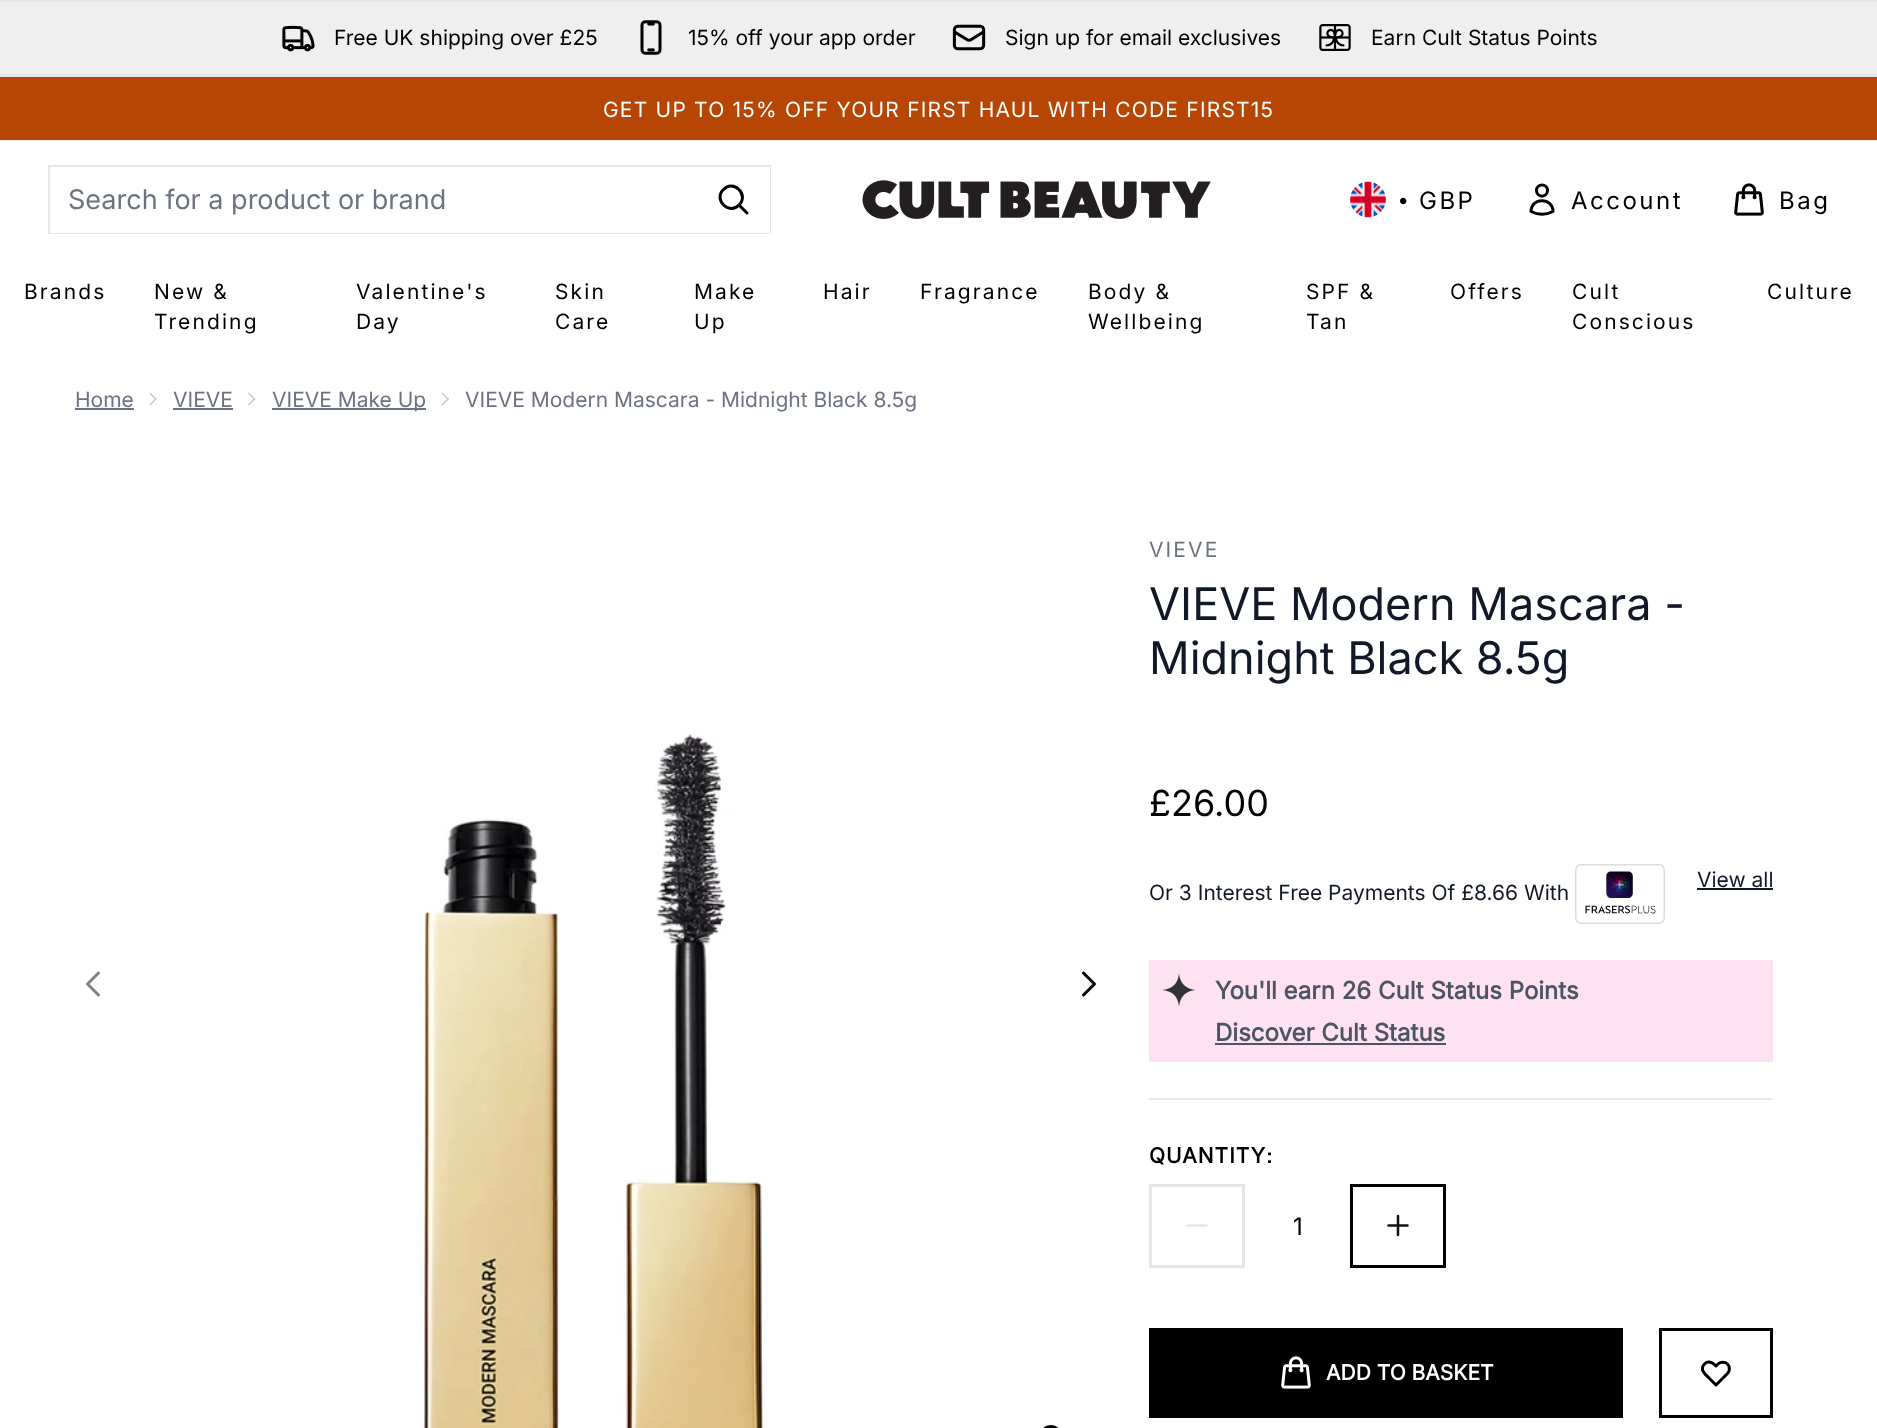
(async () => {
    const canvas = document.querySelector("canvas");
    canvas.width = 1877;
    canvas.height = 1428;
    const context = canvas.getContext("2d");
    context.miterLimit = 4;
    context.fontKerning = "normal";
    function write(s, x, y, font, color) {
        context.font = font;
        context.fillStyle = color;
        context.fillText(s, x, y);
    }
    function block(x, y, w, h, color) {
        context.fillStyle = color;
        context.fillRect(x, y, w, h);
    }
    async function photo(src, x, y, w, h) {
        const img = new Image();
        img.src = src;
        await img.decode();
        context.drawImage(img, x, y, w, h);
    }

    block(0, 0, 1877, 1428, "rgb(255, 255, 255)");
    block(0, 2, 1877, 72, "rgb(239, 239, 239)");
    block(0, 0, 1877, 2, "rgb(229, 231, 235)");
    await photo("media/1.png", 282, 25, 33, 27);
    write("Free UK shipping over £25", 334, 45, "21px Inter", "rgb(0, 0, 0)");
    await photo("media/2.png", 640, 20, 22, 35);
    write("15% off your app order", 688, 45, "21px Inter", "rgb(0, 0, 0)");
    await photo("media/3.png", 952, 24, 34, 27);
    write("Sign up for email exclusives", 1005, 45, "21px Inter", "rgb(0, 0, 0)");
    await photo("media/4.png", 1319, 24, 32, 27);
    write("Earn Cult Status Points", 1371, 45, "21px Inter", "rgb(0, 0, 0)");
    block(0, 77, 1877, 63, "rgb(183, 70, 4)");
    block(0, 74, 1877, 3, "rgb(229, 231, 235)");
    block(0, 140, 1877, 1, "rgb(229, 231, 235)");
    context.letterSpacing = "1.2px";
    write("GET UP TO 15% OFF YOUR FIRST HAUL WITH CODE FIRST15", 603, 117, "21px Inter", "rgb(255, 255, 255)");
    context.strokeStyle = "rgb(229, 231, 235)";
    context.lineWidth = 2;
    context.strokeRect(49, 166, 721, 67);
    block(50, 167, 720, 66, "rgb(255, 255, 255)");
    context.letterSpacing = "0px";
    write("Search for a product or brand", 68, 209, "27px Inter", "rgb(107, 114, 128)");
    context.beginPath();
    context.moveTo(747, 213);
    context.lineTo(739, 205);
    context.moveTo(739, 205);
    context.bezierCurveTo(749.5, 195, 733.5, 179, 723.5, 189.5);
    context.bezierCurveTo(713, 199.5, 729, 215.5, 739, 205);
    context.closePath();
    context.strokeStyle = "rgb(0, 0, 0)";
    context.lineWidth = 3;
    context.lineCap = "round";
    context.lineJoin = "round";
    context.stroke();
    await photo("media/5.png", 862, 180, 349, 39);
    await photo("media/6.png", 1350, 181, 36, 37);
    write("•", 1399, 209, "24px Liberation Sans", "rgb(0, 0, 0)");
    context.letterSpacing = "2.5px";
    write("GBP", 1419, 209, "24px Inter", "rgb(0, 0, 0)");
    context.beginPath();
    context.moveTo(1547.5, 190.5);
    context.bezierCurveTo(1547.5, 198, 1536.5, 198, 1536.5, 190.5);
    context.bezierCurveTo(1536.5, 183, 1547.5, 183, 1547.5, 190.5);
    context.closePath();
    context.moveTo(1531, 211.5);
    context.bezierCurveTo(1531, 197, 1553, 197, 1553, 211.5);
    context.bezierCurveTo(1546, 215, 1538, 215, 1531, 211.5);
    context.closePath();
    context.stroke();
    write("Account", 1571, 209, "24px Inter", "rgb(0, 0, 0)");
    await photo("media/7.png", 1734, 183, 30, 33);
    write("Bag", 1779, 209, "24px Inter", "rgb(0, 0, 0)");
    context.letterSpacing = "2.1px";
    write("Brands", 24, 299, "21px Inter", "rgb(0, 0, 0)");
    write("New &", 154, 299, "21px Inter", "rgb(0, 0, 0)");
    write("Trending", 154, 329, "21px Inter", "rgb(0, 0, 0)");
    write("Valentine's", 356, 299, "21px Inter", "rgb(0, 0, 0)");
    write("Day", 356, 329, "21px Inter", "rgb(0, 0, 0)");
    write("Skin", 555, 299, "21px Inter", "rgb(0, 0, 0)");
    write("Care", 555, 329, "21px Inter", "rgb(0, 0, 0)");
    write("Make", 694, 299, "21px Inter", "rgb(0, 0, 0)");
    write("Up", 694, 329, "21px Inter", "rgb(0, 0, 0)");
    write("Hair", 823, 299, "21px Inter", "rgb(0, 0, 0)");
    write("Fragrance", 920, 299, "21px Inter", "rgb(0, 0, 0)");
    write("Body &", 1088, 299, "21px Inter", "rgb(0, 0, 0)");
    write("Wellbeing", 1088, 329, "21px Inter", "rgb(0, 0, 0)");
    write("SPF &", 1306, 299, "21px Inter", "rgb(0, 0, 0)");
    write("Tan", 1306, 329, "21px Inter", "rgb(0, 0, 0)");
    write("Offers", 1450, 299, "21px Inter", "rgb(0, 0, 0)");
    write("Cult", 1572, 299, "21px Inter", "rgb(0, 0, 0)");
    write("Conscious", 1572, 329, "21px Inter", "rgb(0, 0, 0)");
    write("Culture", 1767, 299, "21px Inter", "rgb(0, 0, 0)");
    context.letterSpacing = "0px";
    write("Home", 75, 407, "21px Inter", "rgb(107, 114, 128)");
    block(75, 408, 59, 2, "rgb(107, 114, 128)");
    context.fillStyle = "rgb(196, 199, 204)";
    context.beginPath();
    context.moveTo(150.5, 392.5);
    context.lineTo(156.5, 399);
    context.lineTo(155.5, 400);
    context.lineTo(149.5, 393.5);
    context.closePath();
    context.fill();
    context.beginPath();
    context.moveTo(155.5, 398);
    context.lineTo(156.5, 399);
    context.lineTo(150.5, 405.5);
    context.lineTo(149.5, 404.5);
    context.closePath();
    context.fill();
    write("VIEVE", 173, 407, "21px Inter", "rgb(107, 114, 128)");
    block(173, 408, 60, 2, "rgb(107, 114, 128)");
    context.fillStyle = "rgb(196, 199, 204)";
    context.beginPath();
    context.moveTo(249, 392.5);
    context.lineTo(255.5, 399);
    context.lineTo(254.5, 400);
    context.lineTo(248, 393.5);
    context.closePath();
    context.fill();
    context.beginPath();
    context.moveTo(254.5, 398);
    context.lineTo(255.5, 399);
    context.lineTo(249, 405.5);
    context.lineTo(248, 404.5);
    context.closePath();
    context.fill();
    block(272, 408, 154, 2, "rgb(107, 114, 128)");
    write("VIEVE Make Up", 272, 407, "21px Inter", "rgb(107, 114, 128)");
    context.fillStyle = "rgb(196, 199, 204)";
    context.beginPath();
    context.moveTo(442.5, 392.5);
    context.lineTo(449, 399);
    context.lineTo(448, 400);
    context.lineTo(441.5, 393.5);
    context.closePath();
    context.fill();
    context.beginPath();
    context.moveTo(448, 398);
    context.lineTo(449, 399);
    context.lineTo(442.5, 405.5);
    context.lineTo(441.5, 404.5);
    context.closePath();
    context.fill();
    write("VIEVE Modern Mascara - Midnight Black 8.5g", 465, 407, "21px Inter", "rgb(107, 114, 128)");
    await photo("media/8.png", 69, 462, 1044, 966);
    context.beginPath();
    context.moveTo(98.5, 995);
    context.lineTo(87.5, 984);
    context.lineTo(98.5, 973);
    context.strokeStyle = "rgb(128, 128, 128)";
    context.stroke();
    context.beginPath();
    context.moveTo(1083.5, 973);
    context.lineTo(1094.5, 984);
    context.lineTo(1083.5, 995);
    context.strokeStyle = "rgb(0, 0, 0)";
    context.stroke();
    context.beginPath();
    context.moveTo(1066.5, 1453.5);
    context.lineTo(1058.5, 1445.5);
    context.moveTo(1058.5, 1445.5);
    context.bezierCurveTo(1069, 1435.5, 1053, 1419.5, 1043, 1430);
    context.bezierCurveTo(1032.5, 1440, 1048.5, 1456, 1058.5, 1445.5);
    context.closePath();
    context.stroke();
    context.letterSpacing = "2.1px";
    write("VIEVE", 1149, 557, "21px Inter", "rgb(107, 114, 128)");
    context.letterSpacing = "0px";
    write("VIEVE Modern Mascara -", 1149, 620, "45px Inter", "rgb(17, 24, 39)");
    write("Midnight Black 8.5g", 1149, 674, "45px Inter", "rgb(17, 24, 39)");
    write("£26.00", 1149, 816, "36px Inter", "rgb(0, 0, 0)");
    write("View all", 1697, 887, "21px Inter", "rgb(17, 24, 39)");
    block(1697, 888, 76, 2, "rgb(17, 24, 39)");
    write("Or 3 Interest Free Payments Of £8.66 With", 1149, 900, "21px Inter", "rgb(17, 24, 39)");
    await photo("media/9.png", 1575, 864, 90, 60);
    block(1149, 960, 624, 102, "rgb(255, 226, 242)");
    await photo("media/10.png", 1162, 973, 33, 34);
    write("You'll earn 26 Cult Status Points", 1215, 999, "bold 24px Inter", "rgb(75, 85, 99)");
    write("Discover Cult Status", 1215, 1041, "bold 24px Inter", "rgb(75, 85, 99)");
    block(1215, 1043, 231, 2, "rgb(75, 85, 99)");
    block(1149, 1098, 624, 2, "rgb(229, 231, 235)");
    context.letterSpacing = "1px";
    write("QUANTITY", 1149, 1163, "bold 21px Inter", "rgb(0, 0, 0)");
    write(":", 1266, 1163, "bold 21px Liberation Sans", "rgb(0, 0, 0)");
    context.strokeStyle = "rgb(230, 230, 230)";
    context.lineJoin = "miter";
    context.strokeRect(1150.5, 1185.5, 93, 81);
    context.beginPath();
    context.moveTo(1206.5, 1225.5);
    context.lineTo(1187.5, 1225.5);
    context.lineWidth = 2.5;
    context.lineJoin = "round";
    context.stroke();
    context.letterSpacing = "0px";
    write("1", 1293, 1235, "24px Inter", "rgb(0, 0, 0)");
    context.strokeStyle = "rgb(0, 0, 0)";
    context.lineWidth = 3;
    context.lineJoin = "miter";
    context.strokeRect(1351.5, 1185.5, 93, 81);
    context.beginPath();
    context.moveTo(1398, 1216);
    context.lineTo(1398, 1235);
    context.moveTo(1407.5, 1225.5);
    context.lineTo(1388.5, 1225.5);
    context.strokeStyle = "rgb(18, 18, 18)";
    context.lineWidth = 2.5;
    context.lineJoin = "round";
    context.stroke();
    block(1149, 1328, 474, 90, "rgb(0, 0, 0)");
    await photo("media/11.png", 1281, 1356, 30, 33);
    write("ADD TO BASKET", 1326, 1380, "bold 21px Inter", "rgb(255, 255, 255)");
    context.strokeStyle = "rgb(0, 0, 0)";
    context.lineWidth = 3;
    context.lineJoin = "miter";
    context.strokeRect(1660.5, 1329.5, 111, 87);
    context.beginPath();
    context.moveTo(1704.5, 1364);
    context.bezierCurveTo(1699.5, 1369, 1704.5, 1374, 1708.5, 1377.5);
    context.lineTo(1716, 1385);
    context.lineTo(1727.5, 1373.5);
    context.bezierCurveTo(1730, 1371, 1730, 1366.5, 1727.5, 1364);
    context.bezierCurveTo(1725, 1361.5, 1720.5, 1361.5, 1718, 1364);
    context.lineTo(1716, 1366);
    context.bezierCurveTo(1712.5, 1362.5, 1708.5, 1360, 1704.5, 1364);
    context.closePath();
    context.lineJoin = "round";
    context.stroke();
})();
